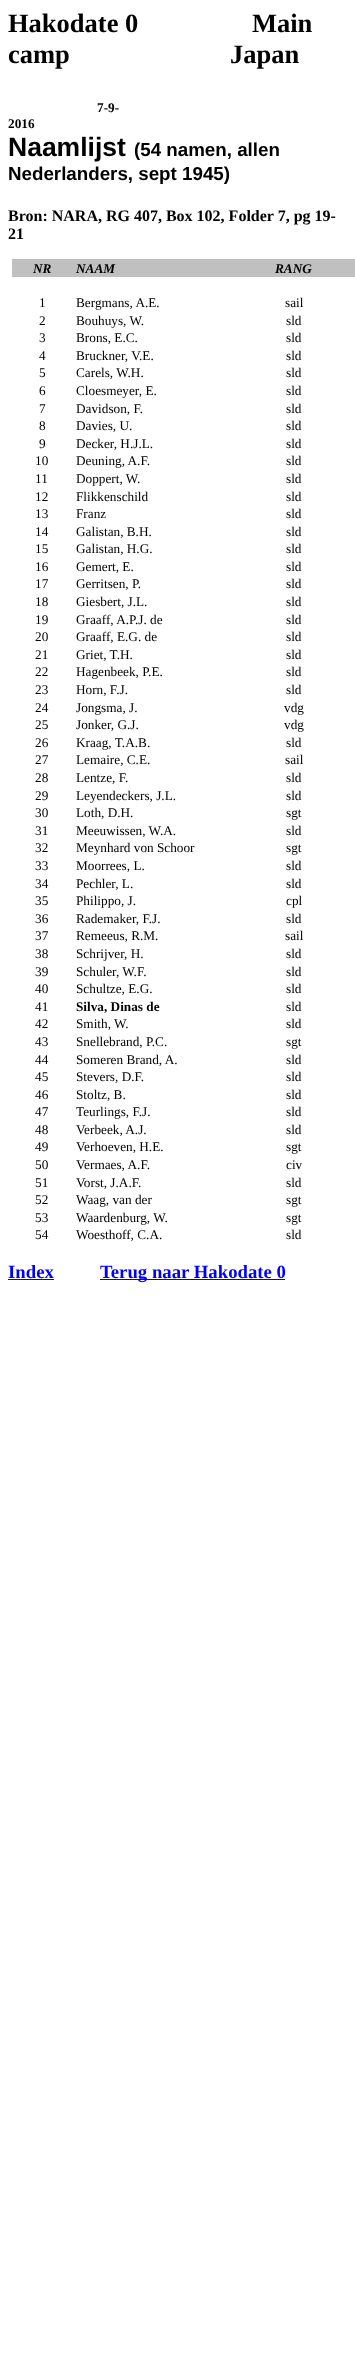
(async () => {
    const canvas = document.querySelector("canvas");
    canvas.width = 355;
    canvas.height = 2355;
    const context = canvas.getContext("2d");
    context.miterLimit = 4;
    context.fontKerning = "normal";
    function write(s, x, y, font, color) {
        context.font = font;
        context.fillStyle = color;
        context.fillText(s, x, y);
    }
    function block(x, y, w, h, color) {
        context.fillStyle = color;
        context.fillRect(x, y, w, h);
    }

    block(0, 0, 355, 2355, "rgb(255, 255, 255)");
    write("Hakodate 0", 8, 32, "bold 26.5px Liberation Serif", "rgb(0, 0, 0)");
    write("Main", 252, 32, "bold 26.5px Liberation Serif", "rgb(0, 0, 0)");
    write("camp", 8, 63, "bold 26.5px Liberation Serif", "rgb(0, 0, 0)");
    write("Japan", 230, 63, "bold 26.5px Liberation Serif", "rgb(0, 0, 0)");
    write("7-9-", 97, 112, "bold 13.25px Liberation Serif", "rgb(0, 0, 0)");
    write("2016", 8, 128, "bold 13.25px Liberation Serif", "rgb(0, 0, 0)");
    write("Naamlijst", 8, 156, "bold 26.5px Liberation Sans", "rgb(0, 0, 0)");
    write("(54 namen, allen", 134, 156, "bold 18.75px Liberation Sans", "rgb(0, 0, 0)");
    write("Nederlanders, sept 1945)", 8, 180, "bold 18.75px Liberation Sans", "rgb(0, 0, 0)");
    write("Bron: NARA, RG 407, Box 102, Folder 7, pg 19-", 8, 221, "bold 16px Liberation Serif", "rgb(0, 0, 0)");
    write("21", 8, 239, "bold 16px Liberation Serif", "rgb(0, 0, 0)");
    block(12, 259, 343, 18, "rgb(192, 192, 192)");
    write("NR", 33, 273, "italic bold 13.25px Liberation Serif", "rgb(0, 0, 0)");
    write("NAAM", 76, 273, "italic bold 13.25px Liberation Serif", "rgb(0, 0, 0)");
    write("RANG", 275, 273, "italic bold 13.25px Liberation Serif", "rgb(0, 0, 0)");
    write("1", 39, 307, "13.25px Liberation Serif", "rgb(0, 0, 0)");
    write("Bergmans, A.E.", 76, 307, "13.25px Liberation Serif", "rgb(0, 0, 0)");
    write("sail", 285, 307, "13.25px Liberation Serif", "rgb(0, 0, 0)");
    write("2", 39, 325, "13.25px Liberation Serif", "rgb(0, 0, 0)");
    write("Bouhuys, W.", 76, 325, "13.25px Liberation Serif", "rgb(0, 0, 0)");
    write("sld", 286, 325, "13.25px Liberation Serif", "rgb(0, 0, 0)");
    write("3", 39, 342, "13.25px Liberation Serif", "rgb(0, 0, 0)");
    write("Brons, E.C.", 76, 342, "13.25px Liberation Serif", "rgb(0, 0, 0)");
    write("sld", 286, 342, "13.25px Liberation Serif", "rgb(0, 0, 0)");
    write("4", 39, 360, "13.25px Liberation Serif", "rgb(0, 0, 0)");
    write("Bruckner, V.E.", 76, 360, "13.25px Liberation Serif", "rgb(0, 0, 0)");
    write("sld", 286, 360, "13.25px Liberation Serif", "rgb(0, 0, 0)");
    write("5", 39, 377, "13.25px Liberation Serif", "rgb(0, 0, 0)");
    write("Carels, W.H.", 76, 377, "13.25px Liberation Serif", "rgb(0, 0, 0)");
    write("sld", 286, 377, "13.25px Liberation Serif", "rgb(0, 0, 0)");
    write("6", 39, 395, "13.25px Liberation Serif", "rgb(0, 0, 0)");
    write("Cloesmeyer, E.", 76, 395, "13.25px Liberation Serif", "rgb(0, 0, 0)");
    write("sld", 286, 395, "13.25px Liberation Serif", "rgb(0, 0, 0)");
    write("7", 39, 413, "13.25px Liberation Serif", "rgb(0, 0, 0)");
    write("Davidson, F.", 76, 413, "13.25px Liberation Serif", "rgb(0, 0, 0)");
    write("sld", 286, 413, "13.25px Liberation Serif", "rgb(0, 0, 0)");
    write("8", 39, 430, "13.25px Liberation Serif", "rgb(0, 0, 0)");
    write("Davies, U.", 76, 430, "13.25px Liberation Serif", "rgb(0, 0, 0)");
    write("sld", 286, 430, "13.25px Liberation Serif", "rgb(0, 0, 0)");
    write("9", 39, 448, "13.25px Liberation Serif", "rgb(0, 0, 0)");
    write("Decker, H.J.L.", 76, 448, "13.25px Liberation Serif", "rgb(0, 0, 0)");
    write("sld", 286, 448, "13.25px Liberation Serif", "rgb(0, 0, 0)");
    write("10", 35, 465, "13.25px Liberation Serif", "rgb(0, 0, 0)");
    write("Deuning, A.F.", 76, 465, "13.25px Liberation Serif", "rgb(0, 0, 0)");
    write("sld", 286, 465, "13.25px Liberation Serif", "rgb(0, 0, 0)");
    write("11", 35, 483, "13.25px Liberation Serif", "rgb(0, 0, 0)");
    write("Doppert, W.", 76, 483, "13.25px Liberation Serif", "rgb(0, 0, 0)");
    write("sld", 286, 483, "13.25px Liberation Serif", "rgb(0, 0, 0)");
    write("12", 35, 501, "13.25px Liberation Serif", "rgb(0, 0, 0)");
    write("Flikkenschild", 76, 501, "13.25px Liberation Serif", "rgb(0, 0, 0)");
    write("sld", 286, 501, "13.25px Liberation Serif", "rgb(0, 0, 0)");
    write("13", 35, 518, "13.25px Liberation Serif", "rgb(0, 0, 0)");
    write("Franz", 76, 518, "13.25px Liberation Serif", "rgb(0, 0, 0)");
    write("sld", 286, 518, "13.25px Liberation Serif", "rgb(0, 0, 0)");
    write("14", 35, 536, "13.25px Liberation Serif", "rgb(0, 0, 0)");
    write("Galistan, B.H.", 76, 536, "13.25px Liberation Serif", "rgb(0, 0, 0)");
    write("sld", 286, 536, "13.25px Liberation Serif", "rgb(0, 0, 0)");
    write("15", 35, 553, "13.25px Liberation Serif", "rgb(0, 0, 0)");
    write("Galistan, H.G.", 76, 553, "13.25px Liberation Serif", "rgb(0, 0, 0)");
    write("sld", 286, 553, "13.25px Liberation Serif", "rgb(0, 0, 0)");
    write("16", 35, 571, "13.25px Liberation Serif", "rgb(0, 0, 0)");
    write("Gemert, E.", 76, 571, "13.25px Liberation Serif", "rgb(0, 0, 0)");
    write("sld", 286, 571, "13.25px Liberation Serif", "rgb(0, 0, 0)");
    write("17", 35, 588, "13.25px Liberation Serif", "rgb(0, 0, 0)");
    write("Gerritsen, P.", 76, 588, "13.25px Liberation Serif", "rgb(0, 0, 0)");
    write("sld", 286, 588, "13.25px Liberation Serif", "rgb(0, 0, 0)");
    write("18", 35, 606, "13.25px Liberation Serif", "rgb(0, 0, 0)");
    write("Giesbert, J.L.", 76, 606, "13.25px Liberation Serif", "rgb(0, 0, 0)");
    write("sld", 286, 606, "13.25px Liberation Serif", "rgb(0, 0, 0)");
    write("19", 35, 624, "13.25px Liberation Serif", "rgb(0, 0, 0)");
    write("Graaff, A.P.J. de", 76, 624, "13.25px Liberation Serif", "rgb(0, 0, 0)");
    write("sld", 286, 624, "13.25px Liberation Serif", "rgb(0, 0, 0)");
    write("20", 35, 641, "13.25px Liberation Serif", "rgb(0, 0, 0)");
    write("Graaff, E.G. de", 76, 641, "13.25px Liberation Serif", "rgb(0, 0, 0)");
    write("sld", 286, 641, "13.25px Liberation Serif", "rgb(0, 0, 0)");
    write("21", 35, 659, "13.25px Liberation Serif", "rgb(0, 0, 0)");
    write("Griet, T.H.", 76, 659, "13.25px Liberation Serif", "rgb(0, 0, 0)");
    write("sld", 286, 659, "13.25px Liberation Serif", "rgb(0, 0, 0)");
    write("22", 35, 676, "13.25px Liberation Serif", "rgb(0, 0, 0)");
    write("Hagenbeek, P.E.", 76, 676, "13.25px Liberation Serif", "rgb(0, 0, 0)");
    write("sld", 286, 676, "13.25px Liberation Serif", "rgb(0, 0, 0)");
    write("23", 35, 694, "13.25px Liberation Serif", "rgb(0, 0, 0)");
    write("Horn, F.J.", 76, 694, "13.25px Liberation Serif", "rgb(0, 0, 0)");
    write("sld", 286, 694, "13.25px Liberation Serif", "rgb(0, 0, 0)");
    write("24", 35, 712, "13.25px Liberation Serif", "rgb(0, 0, 0)");
    write("Jongsma, J.", 76, 712, "13.25px Liberation Serif", "rgb(0, 0, 0)");
    write("vdg", 284, 712, "13.25px Liberation Serif", "rgb(0, 0, 0)");
    write("25", 35, 729, "13.25px Liberation Serif", "rgb(0, 0, 0)");
    write("Jonker, G.J.", 76, 729, "13.25px Liberation Serif", "rgb(0, 0, 0)");
    write("vdg", 284, 729, "13.25px Liberation Serif", "rgb(0, 0, 0)");
    write("26", 35, 747, "13.25px Liberation Serif", "rgb(0, 0, 0)");
    write("Kraag, T.A.B.", 76, 747, "13.25px Liberation Serif", "rgb(0, 0, 0)");
    write("sld", 286, 747, "13.25px Liberation Serif", "rgb(0, 0, 0)");
    write("27", 35, 764, "13.25px Liberation Serif", "rgb(0, 0, 0)");
    write("Lemaire, C.E.", 76, 764, "13.25px Liberation Serif", "rgb(0, 0, 0)");
    write("sail", 285, 764, "13.25px Liberation Serif", "rgb(0, 0, 0)");
    write("28", 35, 782, "13.25px Liberation Serif", "rgb(0, 0, 0)");
    write("Lentze, F.", 76, 782, "13.25px Liberation Serif", "rgb(0, 0, 0)");
    write("sld", 286, 782, "13.25px Liberation Serif", "rgb(0, 0, 0)");
    write("29", 35, 800, "13.25px Liberation Serif", "rgb(0, 0, 0)");
    write("Leyendeckers, J.L.", 76, 800, "13.25px Liberation Serif", "rgb(0, 0, 0)");
    write("sld", 286, 800, "13.25px Liberation Serif", "rgb(0, 0, 0)");
    write("30", 35, 817, "13.25px Liberation Serif", "rgb(0, 0, 0)");
    write("Loth, D.H.", 76, 817, "13.25px Liberation Serif", "rgb(0, 0, 0)");
    write("sgt", 286, 817, "13.25px Liberation Serif", "rgb(0, 0, 0)");
    write("31", 35, 835, "13.25px Liberation Serif", "rgb(0, 0, 0)");
    write("Meeuwissen, W.A.", 76, 835, "13.25px Liberation Serif", "rgb(0, 0, 0)");
    write("sld", 286, 835, "13.25px Liberation Serif", "rgb(0, 0, 0)");
    write("32", 35, 852, "13.25px Liberation Serif", "rgb(0, 0, 0)");
    write("Meynhard von Schoor", 76, 852, "13.25px Liberation Serif", "rgb(0, 0, 0)");
    write("sgt", 286, 852, "13.25px Liberation Serif", "rgb(0, 0, 0)");
    write("33", 35, 870, "13.25px Liberation Serif", "rgb(0, 0, 0)");
    write("Moorrees, L.", 76, 870, "13.25px Liberation Serif", "rgb(0, 0, 0)");
    write("sld", 286, 870, "13.25px Liberation Serif", "rgb(0, 0, 0)");
    write("34", 35, 888, "13.25px Liberation Serif", "rgb(0, 0, 0)");
    write("Pechler, L.", 76, 888, "13.25px Liberation Serif", "rgb(0, 0, 0)");
    write("sld", 286, 888, "13.25px Liberation Serif", "rgb(0, 0, 0)");
    write("35", 35, 905, "13.25px Liberation Serif", "rgb(0, 0, 0)");
    write("Philippo, J.", 76, 905, "13.25px Liberation Serif", "rgb(0, 0, 0)");
    write("cpl", 286, 905, "13.25px Liberation Serif", "rgb(0, 0, 0)");
    write("36", 35, 923, "13.25px Liberation Serif", "rgb(0, 0, 0)");
    write("Rademaker, F.J.", 76, 923, "13.25px Liberation Serif", "rgb(0, 0, 0)");
    write("sld", 286, 923, "13.25px Liberation Serif", "rgb(0, 0, 0)");
    write("37", 35, 940, "13.25px Liberation Serif", "rgb(0, 0, 0)");
    write("Remeeus, R.M.", 76, 940, "13.25px Liberation Serif", "rgb(0, 0, 0)");
    write("sail", 285, 940, "13.25px Liberation Serif", "rgb(0, 0, 0)");
    write("38", 35, 958, "13.25px Liberation Serif", "rgb(0, 0, 0)");
    write("Schrijver, H.", 76, 958, "13.25px Liberation Serif", "rgb(0, 0, 0)");
    write("sld", 286, 958, "13.25px Liberation Serif", "rgb(0, 0, 0)");
    write("39", 35, 976, "13.25px Liberation Serif", "rgb(0, 0, 0)");
    write("Schuler, W.F.", 76, 976, "13.25px Liberation Serif", "rgb(0, 0, 0)");
    write("sld", 286, 976, "13.25px Liberation Serif", "rgb(0, 0, 0)");
    write("40", 35, 993, "13.25px Liberation Serif", "rgb(0, 0, 0)");
    write("Schultze, E.G.", 76, 993, "13.25px Liberation Serif", "rgb(0, 0, 0)");
    write("sld", 286, 993, "13.25px Liberation Serif", "rgb(0, 0, 0)");
    write("41", 35, 1011, "13.25px Liberation Serif", "rgb(0, 0, 0)");
    write("Silva, Dinas de", 76, 1011, "bold 13.25px Liberation Serif", "rgb(0, 0, 0)");
    write("sld", 286, 1011, "13.25px Liberation Serif", "rgb(0, 0, 0)");
    write("42", 35, 1028, "13.25px Liberation Serif", "rgb(0, 0, 0)");
    write("Smith, W.", 76, 1028, "13.25px Liberation Serif", "rgb(0, 0, 0)");
    write("sld", 286, 1028, "13.25px Liberation Serif", "rgb(0, 0, 0)");
    write("43", 35, 1046, "13.25px Liberation Serif", "rgb(0, 0, 0)");
    write("Snellebrand, P.C.", 76, 1046, "13.25px Liberation Serif", "rgb(0, 0, 0)");
    write("sgt", 286, 1046, "13.25px Liberation Serif", "rgb(0, 0, 0)");
    write("44", 35, 1064, "13.25px Liberation Serif", "rgb(0, 0, 0)");
    write("Someren Brand, A.", 76, 1064, "13.25px Liberation Serif", "rgb(0, 0, 0)");
    write("sld", 286, 1064, "13.25px Liberation Serif", "rgb(0, 0, 0)");
    write("45", 35, 1081, "13.25px Liberation Serif", "rgb(0, 0, 0)");
    write("Stevers, D.F.", 76, 1081, "13.25px Liberation Serif", "rgb(0, 0, 0)");
    write("sld", 286, 1081, "13.25px Liberation Serif", "rgb(0, 0, 0)");
    write("46", 35, 1099, "13.25px Liberation Serif", "rgb(0, 0, 0)");
    write("Stoltz, B.", 76, 1099, "13.25px Liberation Serif", "rgb(0, 0, 0)");
    write("sld", 286, 1099, "13.25px Liberation Serif", "rgb(0, 0, 0)");
    write("47", 35, 1116, "13.25px Liberation Serif", "rgb(0, 0, 0)");
    write("Teurlings, F.J.", 76, 1116, "13.25px Liberation Serif", "rgb(0, 0, 0)");
    write("sld", 286, 1116, "13.25px Liberation Serif", "rgb(0, 0, 0)");
    write("48", 35, 1134, "13.25px Liberation Serif", "rgb(0, 0, 0)");
    write("Verbeek, A.J.", 76, 1134, "13.25px Liberation Serif", "rgb(0, 0, 0)");
    write("sld", 286, 1134, "13.25px Liberation Serif", "rgb(0, 0, 0)");
    write("49", 35, 1151, "13.25px Liberation Serif", "rgb(0, 0, 0)");
    write("Verhoeven, H.E.", 76, 1151, "13.25px Liberation Serif", "rgb(0, 0, 0)");
    write("sgt", 286, 1151, "13.25px Liberation Serif", "rgb(0, 0, 0)");
    write("50", 35, 1169, "13.25px Liberation Serif", "rgb(0, 0, 0)");
    write("Vermaes, A.F.", 76, 1169, "13.25px Liberation Serif", "rgb(0, 0, 0)");
    write("civ", 286, 1169, "13.25px Liberation Serif", "rgb(0, 0, 0)");
    write("51", 35, 1187, "13.25px Liberation Serif", "rgb(0, 0, 0)");
    write("Vorst, J.A.F.", 76, 1187, "13.25px Liberation Serif", "rgb(0, 0, 0)");
    write("sld", 286, 1187, "13.25px Liberation Serif", "rgb(0, 0, 0)");
    write("52", 35, 1204, "13.25px Liberation Serif", "rgb(0, 0, 0)");
    write("Waag, van der", 76, 1204, "13.25px Liberation Serif", "rgb(0, 0, 0)");
    write("sgt", 286, 1204, "13.25px Liberation Serif", "rgb(0, 0, 0)");
    write("53", 35, 1222, "13.25px Liberation Serif", "rgb(0, 0, 0)");
    write("Waardenburg, W.", 76, 1222, "13.25px Liberation Serif", "rgb(0, 0, 0)");
    write("sgt", 286, 1222, "13.25px Liberation Serif", "rgb(0, 0, 0)");
    write("54", 35, 1239, "13.25px Liberation Serif", "rgb(0, 0, 0)");
    write("Woesthoff, C.A.", 76, 1239, "13.25px Liberation Serif", "rgb(0, 0, 0)");
    write("sld", 286, 1239, "13.25px Liberation Serif", "rgb(0, 0, 0)");
    write("Index", 8, 1278, "bold 18.75px Liberation Serif", "rgb(0, 0, 255)");
    block(8, 1279, 46, 1, "rgb(0, 0, 255)");
    block(100, 1279, 185, 1, "rgb(0, 0, 255)");
    write("Terug naar Hakodate 0", 100, 1278, "bold 18.75px Liberation Serif", "rgb(0, 0, 255)");
})();
